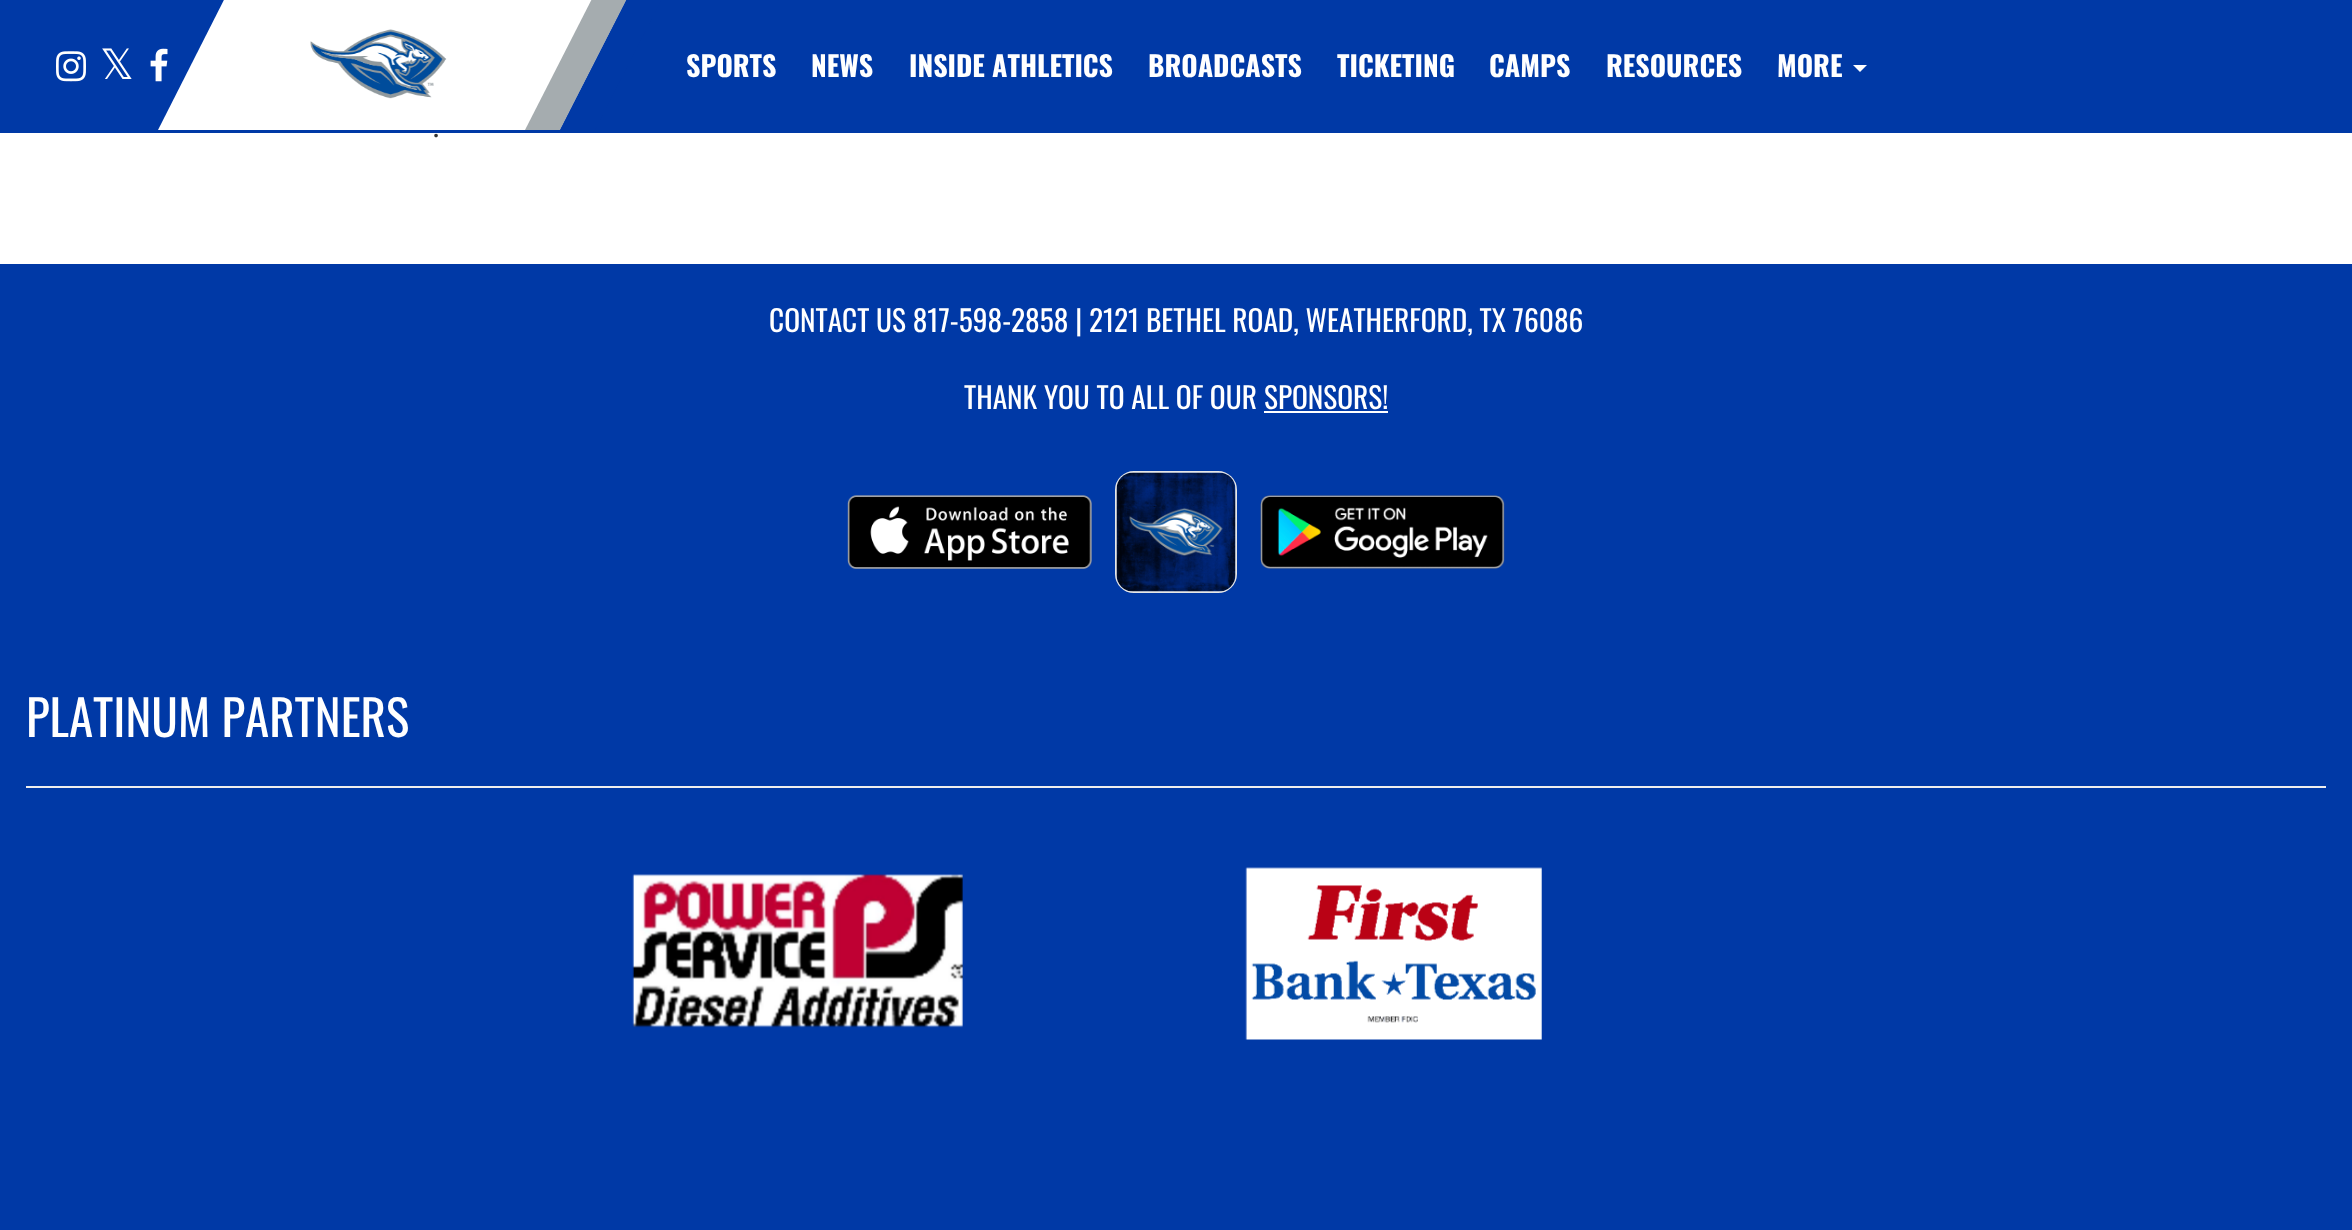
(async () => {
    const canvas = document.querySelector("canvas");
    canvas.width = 2352;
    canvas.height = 1230;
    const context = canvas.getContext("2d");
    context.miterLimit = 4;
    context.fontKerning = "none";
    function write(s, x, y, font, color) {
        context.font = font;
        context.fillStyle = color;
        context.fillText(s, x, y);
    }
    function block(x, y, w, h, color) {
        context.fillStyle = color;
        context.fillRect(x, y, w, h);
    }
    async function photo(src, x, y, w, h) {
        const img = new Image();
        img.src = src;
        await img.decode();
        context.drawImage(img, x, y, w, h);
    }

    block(0, 0, 2352, 1230, "rgb(255, 255, 255)");
    block(0, 0, 2352, 133, "rgb(0, 57, 166)");
    await photo("media/1.png", 56, 51, 30, 31);
    write("𝕏", 100, 79, "42px DejaVu Sans", "rgb(255, 255, 255)");
    await photo("media/2.png", 150, 48, 18, 34);
    context.beginPath();
    context.moveTo(304, -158);
    context.lineTo(707, -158);
    context.lineTo(560, 130);
    context.lineTo(158, 130);
    context.closePath();
    context.fill();
    context.fillStyle = "rgb(165, 172, 175)";
    context.beginPath();
    context.moveTo(672, -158);
    context.lineTo(707, -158);
    context.lineTo(560, 130);
    context.lineTo(525, 130);
    context.closePath();
    context.fill();
    await photo("media/3.png", 310, 29, 137, 70);
    context.fillStyle = "rgb(0, 57, 166)";
    context.beginPath();
    context.moveTo(707, -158);
    context.lineTo(742, -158);
    context.lineTo(595, 130);
    context.lineTo(560, 130);
    context.closePath();
    context.fill();
    write("SPORTS", 686, 77, "bold 28px Oswald", "rgb(255, 255, 255)");
    write("NEWS", 811, 77, "bold 28px Oswald", "rgb(255, 255, 255)");
    write("INSIDE ATHLETICS", 909, 77, "bold 28px Oswald", "rgb(255, 255, 255)");
    write("BROADCASTS", 1148, 77, "bold 28px Oswald", "rgb(255, 255, 255)");
    write("TICKETING", 1337, 77, "bold 28px Oswald", "rgb(255, 255, 255)");
    write("CAMPS", 1489, 77, "bold 28px Oswald", "rgb(255, 255, 255)");
    write("RESOURCES", 1606, 77, "bold 28px Oswald", "rgb(255, 255, 255)");
    write("MORE", 1777, 77, "bold 28px Oswald", "rgb(255, 255, 255)");
    context.beginPath();
    context.moveTo(1853, 65);
    context.lineTo(1867, 65);
    context.lineTo(1860, 72);
    context.closePath();
    context.fill();
    write(".", 432, 137, "32px Roboto", "rgb(51, 51, 51)");
    block(0, 264, 2352, 966, "rgb(0, 57, 166)");
    write("CONTACT US 817-598-2858 | 2121 BETHEL ROAD, WEATHERFORD, TX 76086", 769, 332, "29.4px Oswald", "rgb(255, 255, 255)");
    write("THANK YOU TO ALL OF OUR", 964, 409, "29.4px Oswald", "rgb(255, 255, 255)");
    write("SPONSORS!", 1264, 409, "29.4px Oswald", "rgb(255, 255, 255)");
    block(1264, 411, 124, 2, "rgb(255, 255, 255)");
    await photo("media/4.png", 847, 495, 245, 74);
    context.beginPath();
    context.roundRect(1116, 472, 120, 120, 18);
    context.strokeStyle = "rgb(230, 231, 232)";
    context.lineWidth = 2;
    context.stroke();
    await photo("media/5.png", 1116, 472, 120, 120);
    await photo("media/6.png", 1260, 495, 245, 74);
    write("PLATINUM PARTNERS", 26, 737, "49px Oswald", "rgb(255, 255, 255)");
    block(26, 786, 2300, 2, "rgb(238, 238, 238)");
    await photo("media/7.png", 632, 874, 331, 154);
    await photo("media/8.png", 1245, 867, 297, 173);
})();
